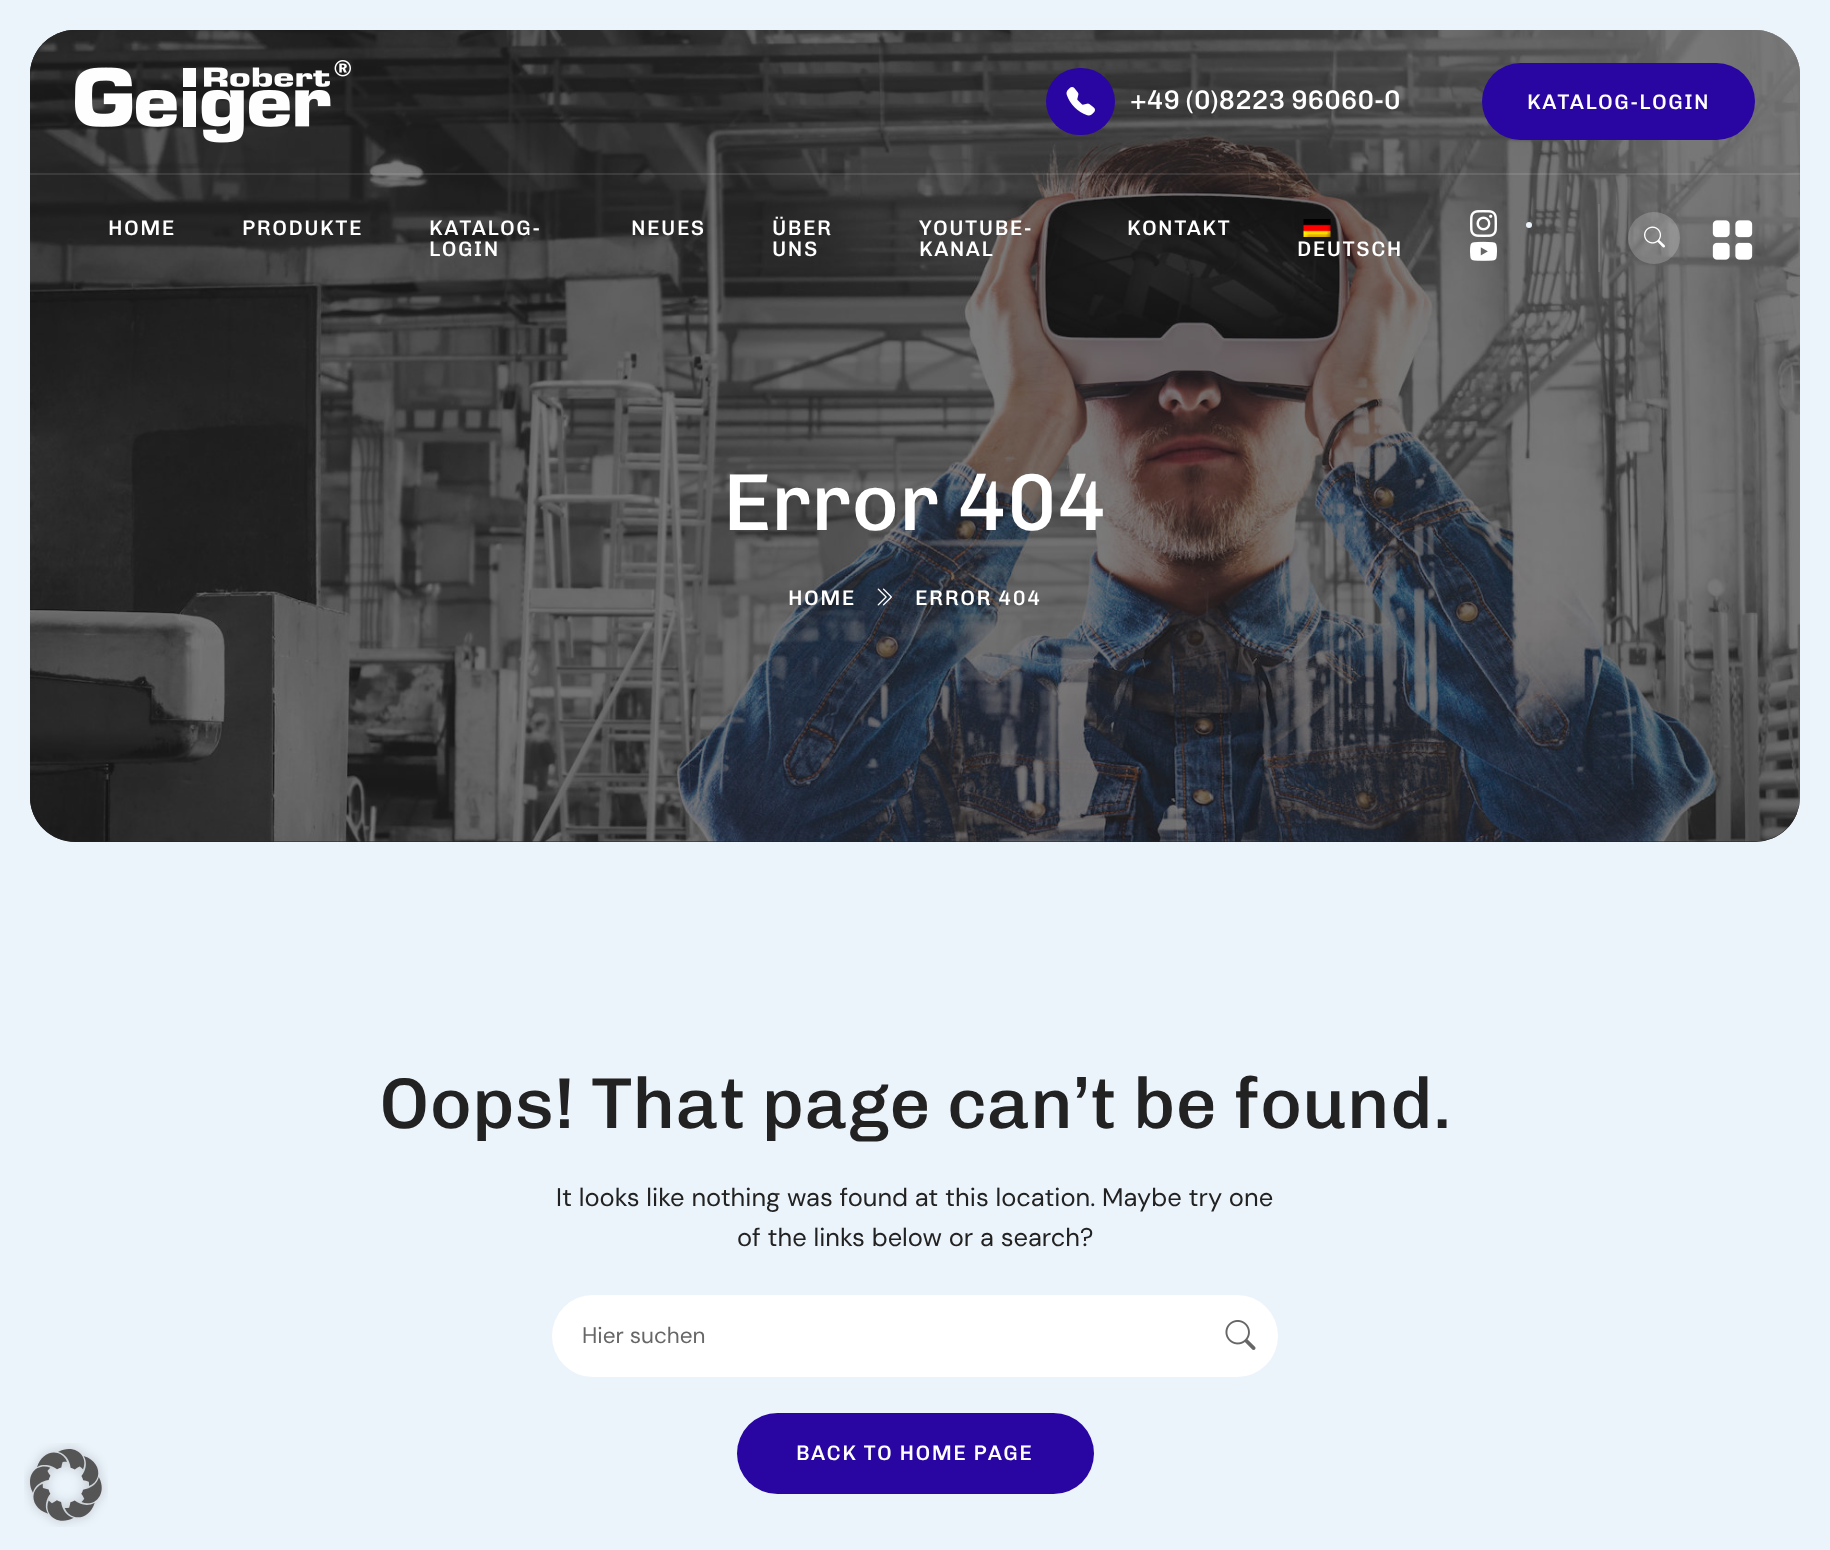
(async () => {
    const canvas = document.querySelector("canvas");
    canvas.width = 1830;
    canvas.height = 1550;
    const context = canvas.getContext("2d");
    context.miterLimit = 4;
    context.fontKerning = "normal";
    function write(s, x, y, font, color) {
        context.font = font;
        context.fillStyle = color;
        context.fillText(s, x, y);
    }
    function block(x, y, w, h, color) {
        context.fillStyle = color;
        context.fillRect(x, y, w, h);
    }
    function card(x, y, w, h, r, color) {
        context.fillStyle = color;
        context.beginPath();
        context.roundRect(x, y, w, h, r);
        context.fill();
    }
    async function photo(src, x, y, w, h) {
        const img = new Image();
        img.src = src;
        await img.decode();
        context.drawImage(img, x, y, w, h);
    }

    block(0, 0, 1830, 1550, "rgb(236, 244, 251)");
    card(30, 30, 1770, 812, 45, "rgb(34, 34, 34)");
    await photo("media/8.png", 30, 30, 1770, 812);
    card(30, 30, 1770, 812, 45, "rgba(34, 34, 34, 0.6)");
    block(30, 173, 1770, 2, "rgba(255, 255, 255, 0.1)");
    await photo("media/1.png", 75, 60, 276, 83);
    card(1046, 68, 69, 67, 33.5, "rgb(41, 5, 161)");
    await photo("media/2.png", 1066, 87, 29, 29);
    write("+49 (0)8223 96060-0", 1130, 109, "500 27px Chivo", "rgb(255, 255, 255)");
    card(1482, 63, 273, 77, 38.5, "rgb(41, 5, 161)");
    context.letterSpacing = "1.5px";
    write("KATALOG-LOGIN", 1527, 109, "500 21px Chivo", "rgb(255, 255, 255)");
    write("HOME", 108, 235, "500 21px Chivo", "rgb(255, 255, 255)");
    write("PRODUKTE", 242, 235, "500 21px Chivo", "rgb(255, 255, 255)");
    write("KATALOG-", 429, 235, "500 21px Chivo", "rgb(255, 255, 255)");
    write("LOGIN", 429, 256, "500 21px Chivo", "rgb(255, 255, 255)");
    write("NEUES", 631, 235, "500 21px Chivo", "rgb(255, 255, 255)");
    write("ÜBER", 772, 235, "500 21px Chivo", "rgb(255, 255, 255)");
    write("UNS", 772, 256, "500 21px Chivo", "rgb(255, 255, 255)");
    write("YOUTUBE-", 919, 235, "500 21px Chivo", "rgb(255, 255, 255)");
    write("KANAL", 919, 256, "500 21px Chivo", "rgb(255, 255, 255)");
    write("KONTAKT", 1127, 235, "500 21px Chivo", "rgb(255, 255, 255)");
    await photo("media/3.png", 1303, 219, 28, 18);
    write("DEUTSCH", 1297, 256, "500 21px Chivo", "rgb(255, 255, 255)");
    block(1598, 204, 2, 68, "rgba(255, 255, 255, 0.1)");
    await photo("media/4.png", 1470, 210, 27, 27);
    context.fillStyle = "rgb(236, 244, 251)";
    context.beginPath();
    context.arc(1529, 225, 3, 0, Math.PI * 2);
    context.fill();
    await photo("media/5.png", 1470, 241, 27, 20);
    context.fillStyle = "rgba(255, 255, 255, 0.2)";
    context.beginPath();
    context.arc(1654, 238, 26, 0, Math.PI * 2);
    context.fill();
    await photo("media/6.png", 1644, 226, 21, 22);
    await photo("media/7.png", 1712, 220, 41, 40);
    context.letterSpacing = "0px";
    write("Error 404", 723, 530, "500 81px Chivo", "rgb(255, 255, 255)");
    context.letterSpacing = "1.5px";
    write("HOME", 788, 605, "500 21px Chivo", "rgb(255, 255, 255)");
    await photo("media/9.png", 877, 588, 15, 18);
    write("ERROR 404", 915, 605, "500 21px Chivo", "rgb(255, 255, 255)");
    context.letterSpacing = "0px";
    write("Oops! That page can’t be found.", 379, 1128, "500 72px Chivo", "rgb(34, 34, 34)");
    write("It looks like nothing was found at this location. Maybe try one", 556, 1206, "25.5px DM Sans", "rgb(34, 34, 34)");
    write("of the links below or a search?", 737, 1246, "25.5px DM Sans", "rgb(34, 34, 34)");
    card(552, 1295, 726, 82, 41, "rgb(255, 255, 255)");
    write("Hier suchen", 582, 1343, "22.5px DM Sans", "rgb(102, 102, 102)");
    await photo("media/10.png", 1225, 1320, 31, 30);
    card(737, 1413, 357, 81, 40.5, "rgb(41, 5, 161)");
    context.letterSpacing = "1.5px";
    write("BACK TO HOME PAGE", 796, 1460, "500 21px Chivo", "rgb(255, 255, 255)");
    await photo("media/11.png", 24, 1443, 84, 84);
})();
